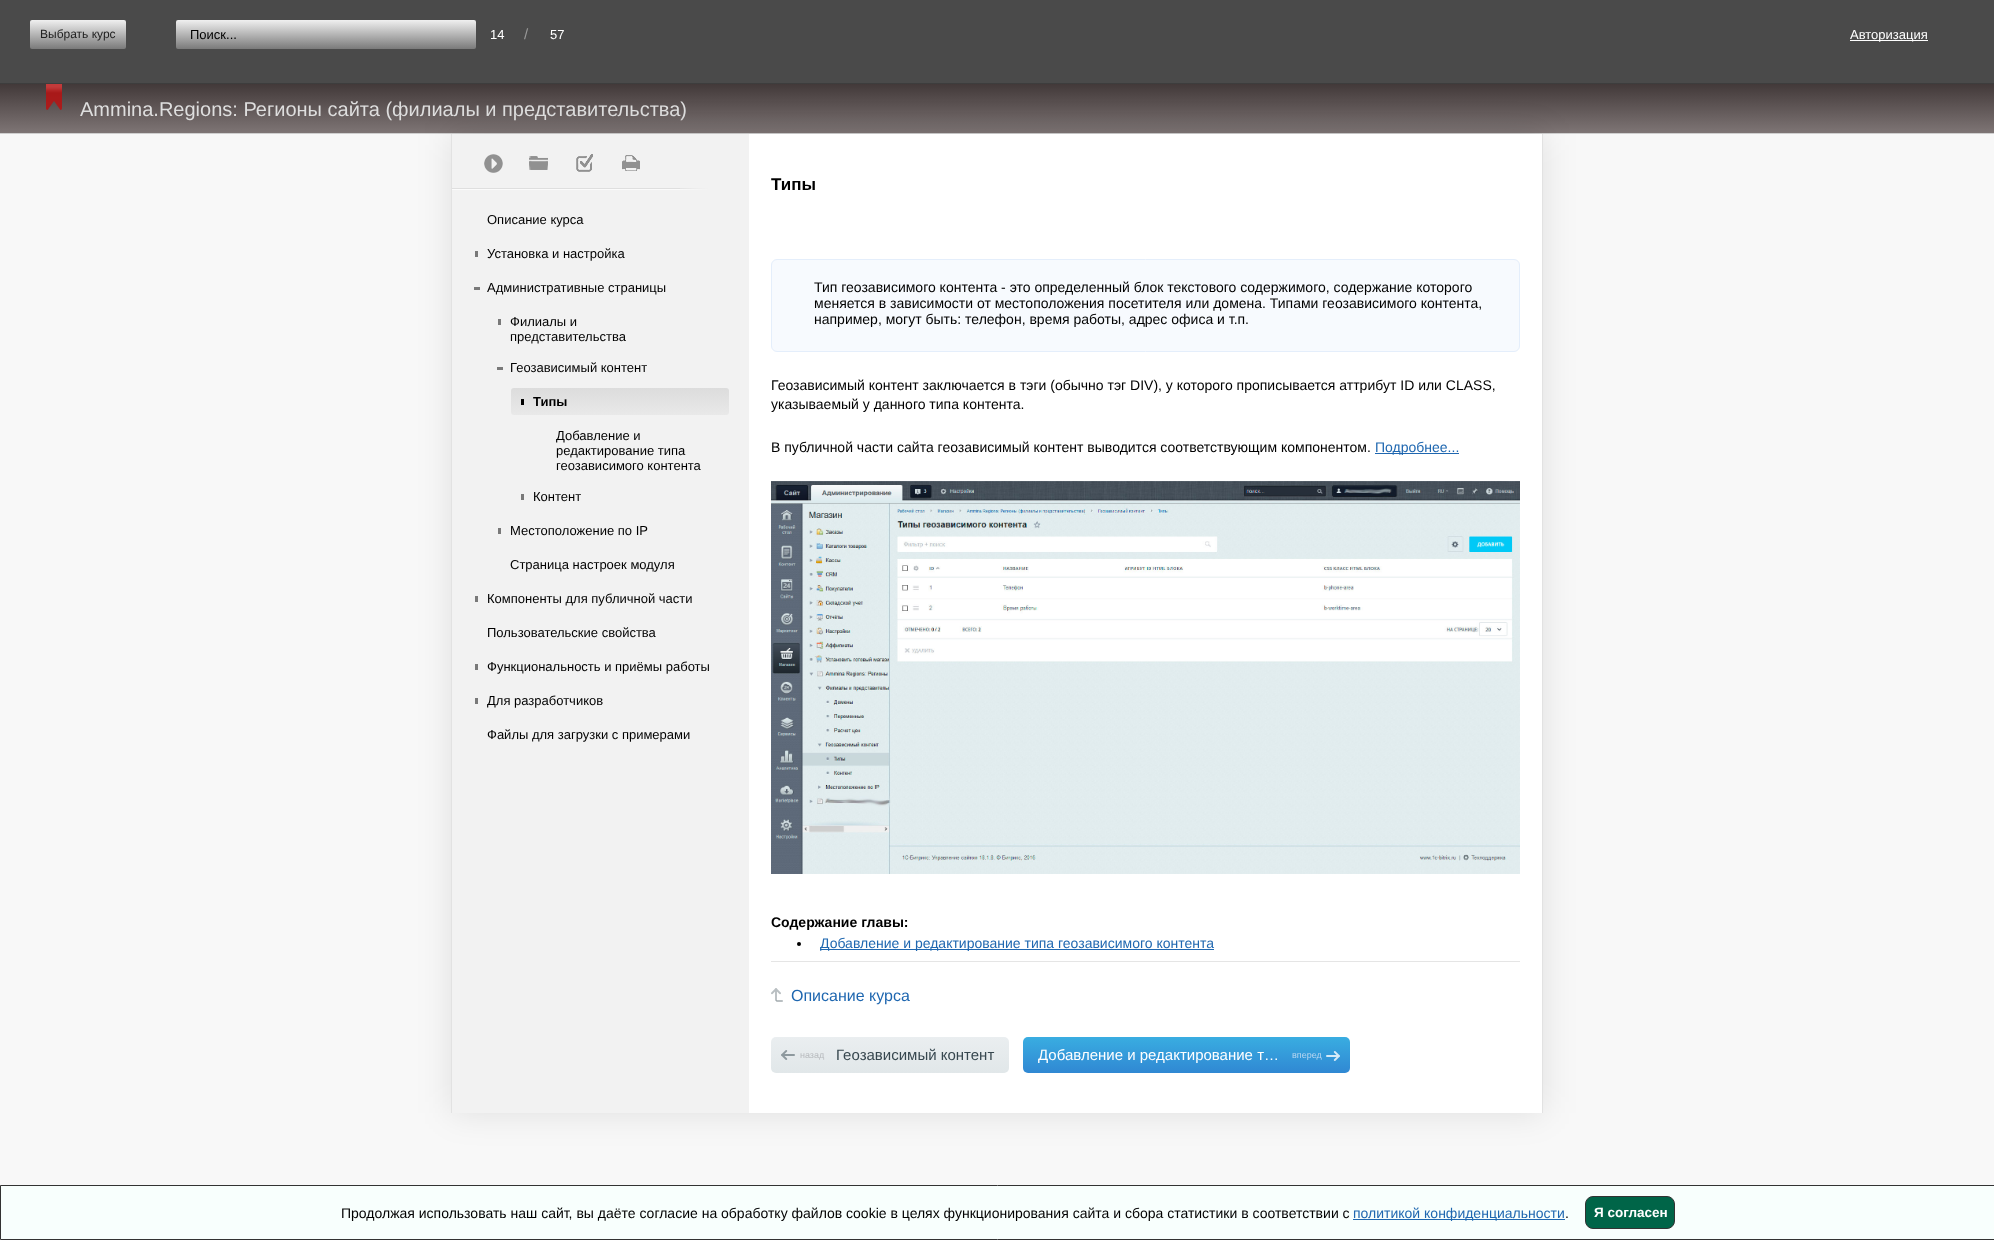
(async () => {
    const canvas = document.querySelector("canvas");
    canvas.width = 1994;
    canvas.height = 1240;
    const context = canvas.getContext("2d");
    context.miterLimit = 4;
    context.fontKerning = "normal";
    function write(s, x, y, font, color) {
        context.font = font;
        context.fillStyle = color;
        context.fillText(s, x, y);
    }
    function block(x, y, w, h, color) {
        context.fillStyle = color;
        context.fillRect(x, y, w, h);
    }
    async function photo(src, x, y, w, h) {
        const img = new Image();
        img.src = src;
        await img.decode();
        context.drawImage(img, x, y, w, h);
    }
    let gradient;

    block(0, 0, 1994, 1240, "rgb(248, 248, 248)");
    block(0, 0, 1994, 83, "rgb(74, 74, 74)");
    block(0, 83, 1994, 1, "rgb(61, 61, 61)");
    gradient = context.createLinearGradient(78, 49, 78, 20);
    gradient.addColorStop(0, "rgb(122, 122, 122)");
    gradient.addColorStop(1, "rgb(240, 240, 240)");
    context.fillStyle = gradient;
    context.beginPath();
    context.roundRect(30, 20, 96, 29, 2);
    context.fill();
    write("Выбрать курс", 40, 38, "12px Liberation Sans", "rgb(34, 34, 34)");
    gradient = context.createLinearGradient(326, 49, 326, 20);
    gradient.addColorStop(0, "rgb(122, 122, 122)");
    gradient.addColorStop(1, "rgb(240, 240, 240)");
    context.fillStyle = gradient;
    context.beginPath();
    context.roundRect(176, 20, 300, 29, 2);
    context.fill();
    write("Поиск...", 190, 39, "13px Liberation Sans", "rgb(0, 0, 0)");
    write("14", 490, 39, "13px Liberation Sans", "rgb(255, 255, 255)");
    write("/", 524, 39, "15px Liberation Sans", "rgb(153, 153, 153)");
    write("57", 550, 39, "13px Liberation Sans", "rgb(255, 255, 255)");
    block(1850, 40, 78, 1, "rgb(255, 255, 255)");
    write("Авторизация", 1850, 39, "13px Liberation Sans", "rgb(255, 255, 255)");
    gradient = context.createLinearGradient(997, 84, 997, 133);
    gradient.addColorStop(0, "rgb(66, 57, 57)");
    gradient.addColorStop(1, "rgb(126, 117, 117)");
    context.fillStyle = gradient;
    context.fillRect(0, 84, 1994, 49);
    block(0, 133, 1994, 1, "rgb(207, 207, 207)");
    await photo("media/1.png", 46, 84, 16, 26);
    write("Ammina.Regions: Регионы сайта (филиалы и представительства)", 80, 116, "20px Liberation Sans", "rgb(222, 222, 222)");
    context.fillStyle = "rgba(0, 0, 0, 0.1)";
    context.filter = "blur(17px)";
    context.beginPath();
    context.rect(451, 134, 1092, 979);
    context.fill();
    context.filter = "none";
    block(749, 134, 793, 979, "rgb(255, 255, 255)");
    block(452, 134, 297, 979, "rgb(242, 242, 242)");
    block(1542, 134, 1, 979, "rgb(226, 226, 226)");
    block(451, 134, 1, 979, "rgb(226, 226, 226)");
    block(452, 188, 228, 1, "rgb(223, 223, 223)");
    block(452, 189, 228, 1, "rgb(251, 251, 251)");
    await photo("media/2.png", 484, 154, 19, 19);
    await photo("media/3.png", 529, 156, 19, 14);
    await photo("media/4.png", 576, 154, 17, 18);
    await photo("media/5.png", 622, 155, 18, 16);
    await photo("media/6.png", 680, 188, 29, 2);
    write("Описание курса", 487, 224, "13px Liberation Sans", "rgb(0, 0, 0)");
    block(475, 251, 3, 6, "rgb(121, 121, 121)");
    write("Установка и настройка", 487, 258, "13px Liberation Sans", "rgb(0, 0, 0)");
    block(474, 287, 6, 3, "rgb(121, 121, 121)");
    write("Административные страницы", 487, 292, "13px Liberation Sans", "rgb(0, 0, 0)");
    block(498, 319, 3, 6, "rgb(121, 121, 121)");
    write("Филиалы и", 510, 326, "13px Liberation Sans", "rgb(0, 0, 0)");
    write("представительства", 510, 341, "13px Liberation Sans", "rgb(0, 0, 0)");
    block(497, 367, 6, 3, "rgb(121, 121, 121)");
    write("Геозависимый контент", 510, 372, "13px Liberation Sans", "rgb(0, 0, 0)");
    gradient = context.createLinearGradient(620, 388, 620, 415);
    gradient.addColorStop(0, "rgb(220, 220, 220)");
    gradient.addColorStop(1, "rgb(233, 233, 233)");
    context.fillStyle = gradient;
    context.beginPath();
    context.roundRect(511, 388, 218, 27, 3);
    context.fill();
    block(521, 399, 3, 6, "rgb(0, 0, 0)");
    write("Типы", 533, 406, "bold 13px Liberation Sans", "rgb(0, 0, 0)");
    write("Добавление и", 556, 440, "13px Liberation Sans", "rgb(0, 0, 0)");
    write("редактирование типа", 556, 455, "13px Liberation Sans", "rgb(0, 0, 0)");
    write("геозависимого контента", 556, 470, "13px Liberation Sans", "rgb(0, 0, 0)");
    block(521, 494, 3, 6, "rgb(121, 121, 121)");
    write("Контент", 533, 501, "13px Liberation Sans", "rgb(0, 0, 0)");
    block(498, 528, 3, 6, "rgb(121, 121, 121)");
    write("Местоположение по IP", 510, 535, "13px Liberation Sans", "rgb(0, 0, 0)");
    write("Страница настроек модуля", 510, 569, "13px Liberation Sans", "rgb(0, 0, 0)");
    block(475, 596, 3, 6, "rgb(121, 121, 121)");
    write("Компоненты для публичной части", 487, 603, "13px Liberation Sans", "rgb(0, 0, 0)");
    write("Пользовательские свойства", 487, 637, "13px Liberation Sans", "rgb(0, 0, 0)");
    block(475, 664, 3, 6, "rgb(121, 121, 121)");
    write("Функциональность и приёмы работы", 487, 671, "13px Liberation Sans", "rgb(0, 0, 0)");
    block(475, 698, 3, 6, "rgb(121, 121, 121)");
    write("Для разработчиков", 487, 705, "13px Liberation Sans", "rgb(0, 0, 0)");
    write("Файлы для загрузки с примерами", 487, 739, "13px Liberation Sans", "rgb(0, 0, 0)");
    write("Типы", 771, 190, "bold 17px Liberation Sans", "rgb(0, 0, 0)");
    context.fillStyle = "rgb(247, 250, 254)";
    context.beginPath();
    context.roundRect(771.5, 259.5, 748, 92, 5.5);
    context.fill();
    context.strokeStyle = "rgb(228, 238, 251)";
    context.stroke();
    write("Тип геозависимого контента - это определенный блок текстового содержимого, содержание которого", 814, 292, "14px Liberation Sans", "rgb(0, 0, 0)");
    write("меняется в зависимости от местоположения посетителя или домена. Типами геозависимого контента,", 814, 308, "14px Liberation Sans", "rgb(0, 0, 0)");
    write("например, могут быть: телефон, время работы, адрес офиса и т.п.", 814, 324, "14px Liberation Sans", "rgb(0, 0, 0)");
    write("Геозависимый контент заключается в тэги (обычно тэг DIV), у которого прописывается аттрибут ID или CLASS,", 771, 390, "14px Liberation Sans", "rgb(0, 0, 0)");
    write("указываемый у данного типа контента.", 771, 409, "14px Liberation Sans", "rgb(0, 0, 0)");
    write("В публичной части сайта геозависимый контент выводится соответствующим компонентом.", 771, 452, "14px Liberation Sans", "rgb(0, 0, 0)");
    block(1375, 453, 84, 1, "rgb(31, 103, 176)");
    write("Подробнее...", 1375, 452, "14px Liberation Sans", "rgb(31, 103, 176)");
    await photo("media/7.png", 771, 481, 749, 393);
    write("Содержание главы:", 771, 927, "bold 14px Liberation Sans", "rgb(0, 0, 0)");
    context.beginPath();
    context.arc(799, 944, 2, 0, Math.PI * 2);
    context.fill();
    block(820, 949, 394, 1, "rgb(31, 103, 176)");
    write("Добавление и редактирование типа геозависимого контента", 820, 948, "14px Liberation Sans", "rgb(31, 103, 176)");
    block(771, 961, 749, 1, "rgb(229, 229, 229)");
    await photo("media/8.png", 771, 988, 12, 14);
    write("Описание курса", 791, 1001, "16px Liberation Sans", "rgb(31, 103, 176)");
    gradient = context.createLinearGradient(890, 1037, 890, 1073);
    gradient.addColorStop(0, "rgb(234, 238, 240)");
    gradient.addColorStop(1, "rgb(225, 231, 233)");
    context.fillStyle = gradient;
    context.beginPath();
    context.roundRect(771, 1037, 238, 36, 5);
    context.fill();
    await photo("media/9.png", 781, 1050, 14, 10);
    write("назад", 800, 1058, "9px Liberation Sans", "rgb(183, 186, 189)");
    write("Геозависимый контент", 836, 1060, "15px Liberation Sans", "rgb(55, 71, 79)");
    gradient = context.createLinearGradient(1187, 1037, 1187, 1073);
    gradient.addColorStop(0, "rgb(57, 173, 225)");
    gradient.addColorStop(1, "rgb(48, 136, 211)");
    context.fillStyle = gradient;
    context.beginPath();
    context.roundRect(1023, 1037, 327, 36, 5);
    context.fill();
    write("Добавление и редактирование т…", 1038, 1060, "15px Liberation Sans", "rgb(255, 255, 255)");
    await photo("media/10.png", 1326, 1051, 14, 10);
    write("вперед", 1292, 1058, "9px Liberation Sans", "rgb(184, 215, 240)");
    context.fillStyle = "rgb(248, 255, 253)";
    context.beginPath();
    context.rect(0.5, 1185.5, 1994, 54);
    context.fill();
    context.strokeStyle = "rgb(51, 51, 51)";
    context.stroke();
    write("Продолжая использовать наш сайт, вы даёте согласие на обработку файлов cookie в целях функционирования сайта и сбора статистики в соответствии с", 341, 1218, "14px Liberation Sans", "rgb(0, 0, 0)");
    block(1353, 1219, 212, 1, "rgb(31, 103, 176)");
    write("политикой конфиденциальности", 1353, 1218, "14px Liberation Sans", "rgb(31, 103, 176)");
    write(".", 1565, 1218, "14px Liberation Sans", "rgb(0, 0, 0)");
    context.fillStyle = "rgb(0, 101, 72)";
    context.beginPath();
    context.roundRect(1585.5, 1196.5, 89, 32, 7.5);
    context.fill();
    context.stroke();
    write("Я согласен", 1594, 1217, "bold 13.5px Liberation Sans", "rgb(255, 255, 255)");
})();
